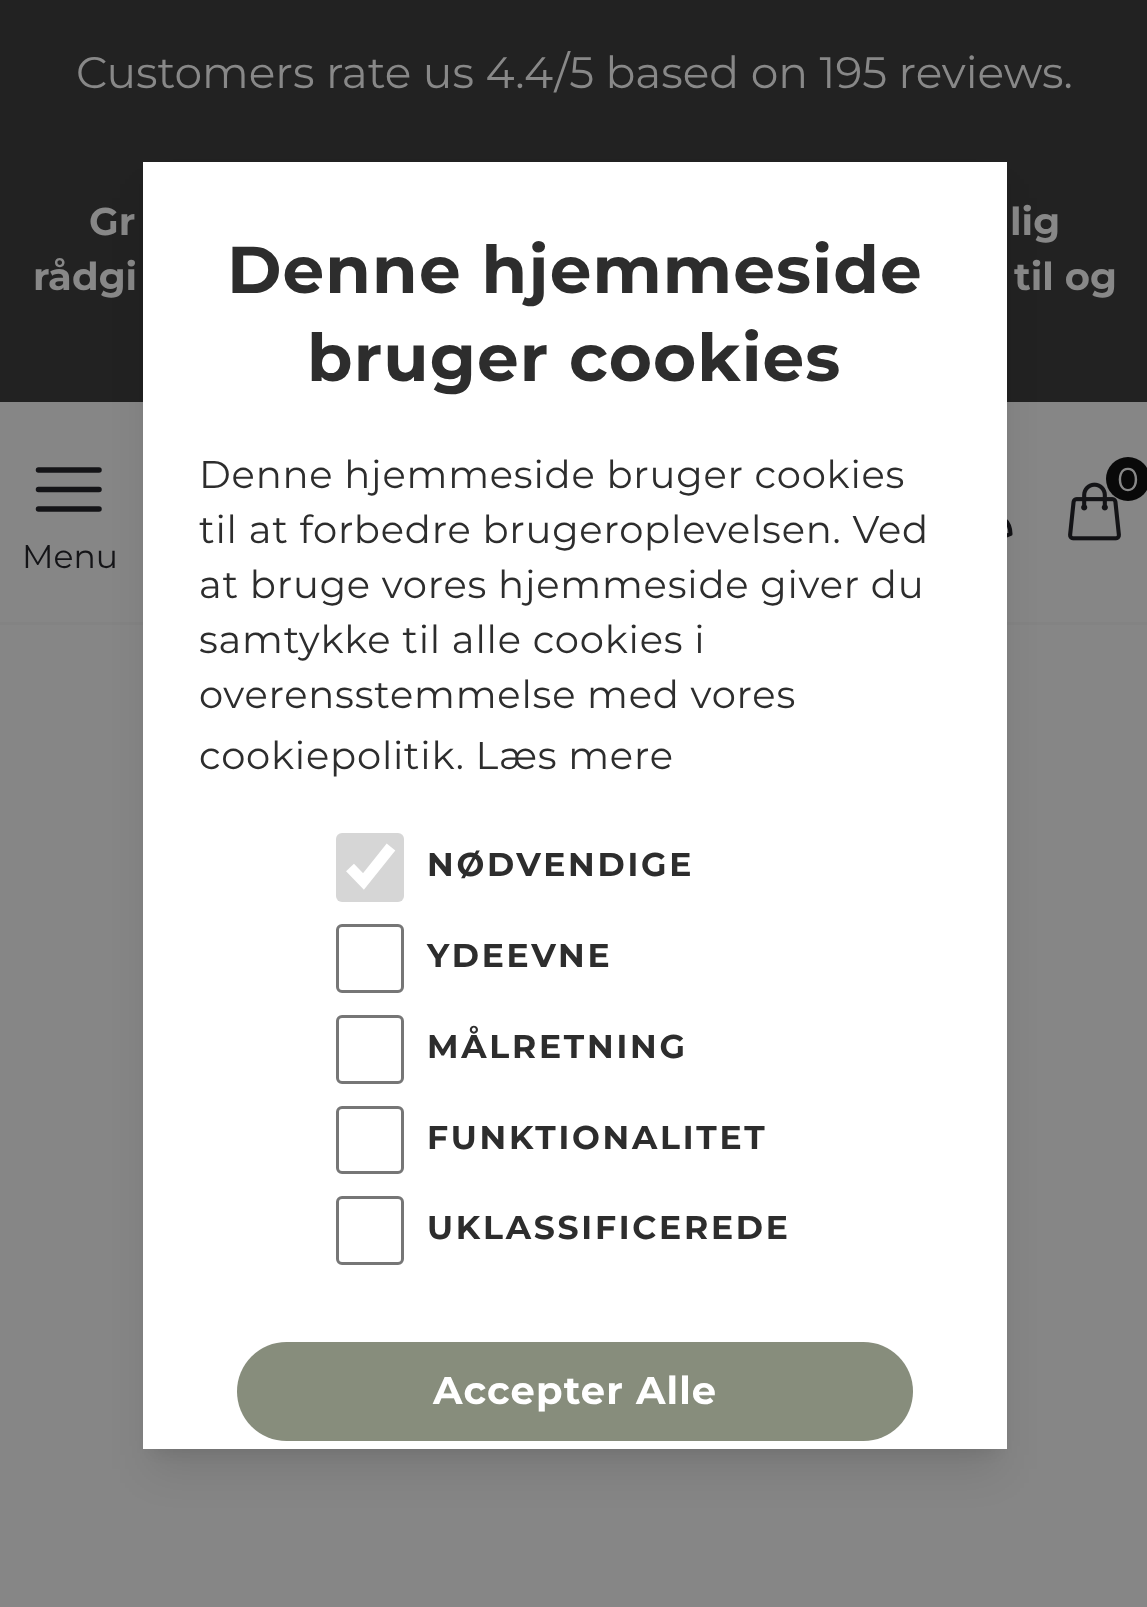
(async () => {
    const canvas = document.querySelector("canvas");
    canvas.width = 1147;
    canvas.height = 1607;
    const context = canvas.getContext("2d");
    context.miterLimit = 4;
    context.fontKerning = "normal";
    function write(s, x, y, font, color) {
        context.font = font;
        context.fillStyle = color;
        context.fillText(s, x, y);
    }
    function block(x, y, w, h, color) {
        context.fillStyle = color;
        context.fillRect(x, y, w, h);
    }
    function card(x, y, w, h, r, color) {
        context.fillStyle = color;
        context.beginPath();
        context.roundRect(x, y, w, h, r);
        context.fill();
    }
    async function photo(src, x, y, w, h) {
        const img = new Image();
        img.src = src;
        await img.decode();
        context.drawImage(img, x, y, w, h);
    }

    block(0, 0, 1147, 1607, "rgb(34, 34, 34)");
    write("Customers rate us 4.4/5 based on 195 reviews.", 76, 88, "44px Montserrat", "rgb(136, 136, 136)");
    write("Gr", 89, 235, "bold 38.5px Montserrat", "rgb(136, 136, 136)");
    write("lig", 1010, 235, "bold 38.5px Montserrat", "rgb(136, 136, 136)");
    write("rådgi", 33, 290, "bold 38.5px Montserrat", "rgb(136, 136, 136)");
    write("til og", 1014, 290, "bold 38.5px Montserrat", "rgb(136, 136, 136)");
    block(0, 402, 1147, 220, "rgb(134, 134, 134)");
    block(0, 622, 1147, 3, "rgb(131, 131, 131)");
    context.beginPath();
    context.moveTo(1000.5, 495);
    context.bezierCurveTo(1000.5, 508.5, 979.5, 508.5, 979.5, 495);
    context.bezierCurveTo(979.5, 481.5, 1000.5, 481.5, 1000.5, 495);
    context.closePath();
    context.moveTo(969.5, 534);
    context.bezierCurveTo(970, 507, 1010, 507, 1010.5, 534);
    context.bezierCurveTo(997.5, 540, 982.5, 540, 969.5, 534);
    context.closePath();
    context.strokeStyle = "rgb(20, 20, 23)";
    context.lineWidth = 4.1;
    context.lineCap = "round";
    context.lineJoin = "round";
    context.stroke();
    block(0, 625, 1147, 982, "rgb(134, 134, 134)");
    context.fillStyle = "rgba(0, 0, 0, 0.1)";
    context.filter = "blur(8px)";
    context.beginPath();
    context.rect(154, 184, 842, 1265);
    context.fill();
    context.filter = "none";
    context.beginPath();
    context.moveTo(38.5, 470);
    context.lineTo(99, 470);
    context.moveTo(38.5, 489.5);
    context.lineTo(99, 489.5);
    context.moveTo(38.5, 509);
    context.lineTo(99, 509);
    context.lineWidth = 5.5;
    context.stroke();
    context.filter = "blur(20.5px)";
    context.beginPath();
    context.rect(151, 198, 847, 1271);
    context.fill();
    context.filter = "none";
    block(143, 162, 864, 1287, "rgb(255, 255, 255)");
    context.letterSpacing = "1.1px";
    write("Denne hjemmeside", 227, 293, "bold 66px Montserrat", "rgb(45, 45, 45)");
    write("bruger cookies", 307, 381, "bold 66px Montserrat", "rgb(45, 45, 45)");
    context.letterSpacing = "0.8px";
    write("Denne hjemmeside bruger cookies", 199, 488, "38.5px Montserrat", "rgb(45, 45, 45)");
    write("til at forbedre brugeroplevelsen. Ved", 199, 543, "38.5px Montserrat", "rgb(45, 45, 45)");
    write("at bruge vores hjemmeside giver du", 199, 598, "38.5px Montserrat", "rgb(45, 45, 45)");
    write("samtykke til alle cookies i", 199, 653, "38.5px Montserrat", "rgb(45, 45, 45)");
    write("overensstemmelse med vores", 199, 708, "38.5px Montserrat", "rgb(45, 45, 45)");
    write("cookiepolitik. Læs mere", 199, 769, "38.5px Montserrat", "rgb(45, 45, 45)");
    card(336, 833, 68, 69, 6, "rgb(214, 214, 214)");
    context.beginPath();
    context.moveTo(350, 867.5);
    context.lineTo(363.5, 881.5);
    context.lineTo(391, 847);
    context.strokeStyle = "rgb(255, 255, 255)";
    context.lineWidth = 11;
    context.lineCap = "butt";
    context.lineJoin = "miter";
    context.stroke();
    context.letterSpacing = "2.75px";
    write("NØDVENDIGE", 427, 876, "bold 33px Montserrat", "rgb(45, 45, 45)");
    context.beginPath();
    context.roundRect(337.5, 925.5, 65, 66, 4.5);
    context.strokeStyle = "rgb(118, 118, 118)";
    context.lineWidth = 3;
    context.stroke();
    write("YDEEVNE", 427, 967, "bold 33px Montserrat", "rgb(45, 45, 45)");
    context.beginPath();
    context.roundRect(337.5, 1016.5, 65, 66, 4.5);
    context.stroke();
    write("MÅLRETNING", 427, 1058, "bold 33px Montserrat", "rgb(45, 45, 45)");
    context.beginPath();
    context.roundRect(337.5, 1107.5, 65, 65, 4.5);
    context.stroke();
    write("FUNKTIONALITET", 427, 1149, "bold 33px Montserrat", "rgb(45, 45, 45)");
    context.beginPath();
    context.roundRect(337.5, 1197.5, 65, 66, 4.5);
    context.stroke();
    write("UKLASSIFICEREDE", 427, 1239, "bold 33px Montserrat", "rgb(45, 45, 45)");
    card(237, 1342, 676, 99, 49.5, "rgb(135, 141, 124)");
    context.letterSpacing = "1.1px";
    write("Accepter Alle", 433, 1404, "bold 38.5px Montserrat", "rgb(255, 255, 255)");
    await photo("media/1.png", 1068, 482, 53, 59);
    context.fillStyle = "rgb(9, 9, 9)";
    context.beginPath();
    context.arc(1128, 479, 22, 0, Math.PI * 2);
    context.fill();
    context.letterSpacing = "0px";
    write("0", 1117, 491, "33px Montserrat", "rgb(136, 136, 136)");
    write("Menu", 22, 568, "33px Montserrat", "rgb(20, 20, 23)");
})();
